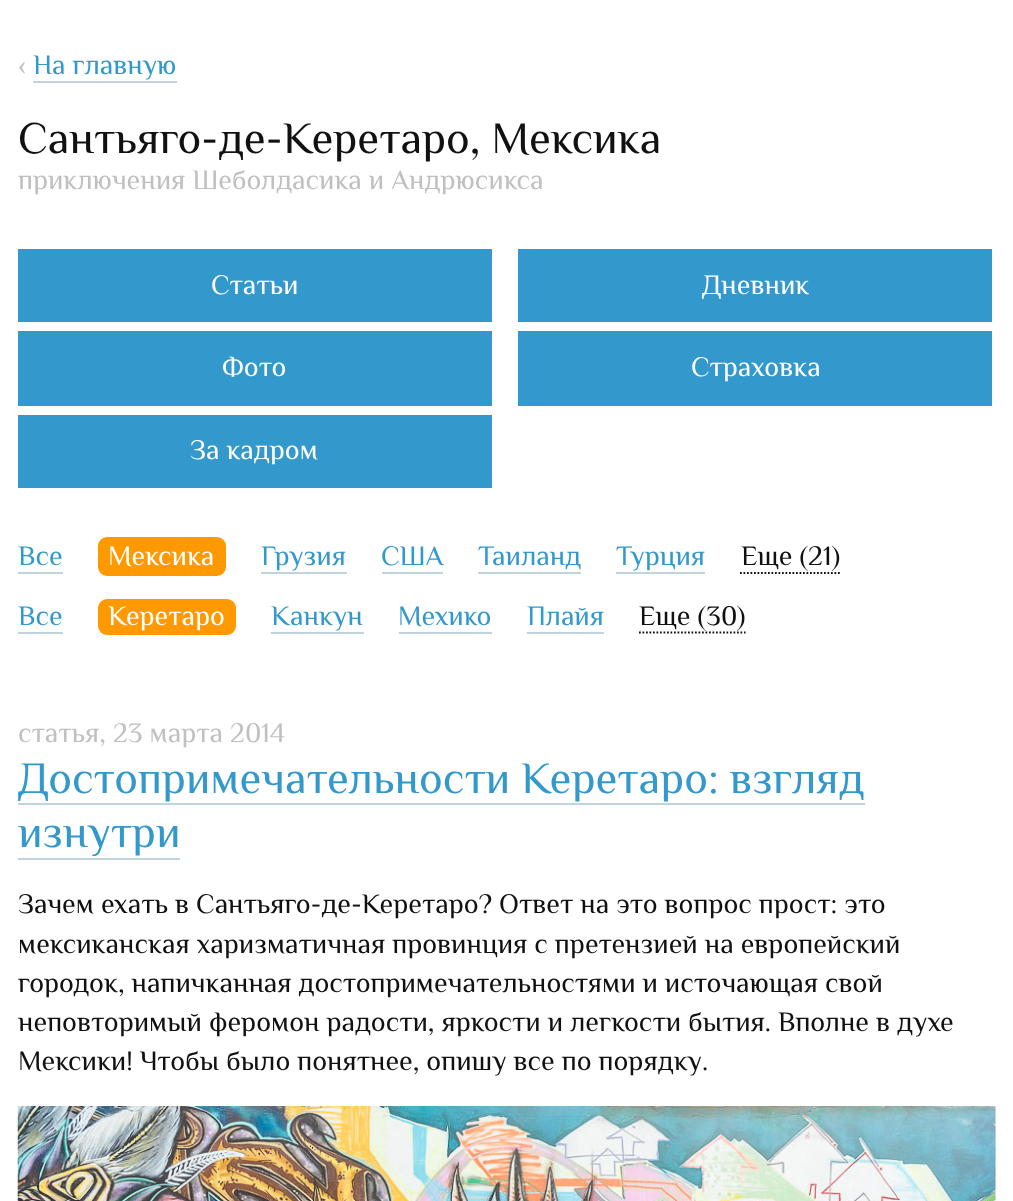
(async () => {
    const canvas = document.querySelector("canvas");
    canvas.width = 1013;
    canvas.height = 1201;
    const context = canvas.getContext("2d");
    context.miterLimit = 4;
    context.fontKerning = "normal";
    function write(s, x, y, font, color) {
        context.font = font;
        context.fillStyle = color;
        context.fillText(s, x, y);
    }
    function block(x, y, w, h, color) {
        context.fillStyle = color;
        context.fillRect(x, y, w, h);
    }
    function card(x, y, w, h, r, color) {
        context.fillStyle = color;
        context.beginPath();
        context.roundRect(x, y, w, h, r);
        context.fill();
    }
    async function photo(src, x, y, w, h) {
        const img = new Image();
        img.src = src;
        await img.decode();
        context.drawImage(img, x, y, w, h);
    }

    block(0, 0, 1013, 1201, "rgb(255, 255, 255)");
    write("‹", 18, 74, "28px Philosopher", "rgb(192, 192, 192)");
    write("На главную", 33, 74, "28px Philosopher", "rgb(51, 153, 204)");
    block(33, 81, 144, 2, "rgb(191, 212, 222)");
    write("Сантьяго-де-Керетаро, Мексика", 18, 153, "44.75px Philosopher", "rgb(17, 17, 17)");
    write("приключения Шеболдасика и Андрюсикса", 18, 189, "28px Philosopher", "rgb(192, 192, 192)");
    block(18, 249, 474, 73, "rgb(51, 153, 204)");
    write("Статьи", 211, 294, "28px Philosopher", "rgb(255, 255, 255)");
    block(518, 249, 474, 73, "rgb(51, 153, 204)");
    write("Дневник", 702, 294, "28px Philosopher", "rgb(255, 255, 255)");
    block(18, 331, 474, 75, "rgb(51, 153, 204)");
    write("Фото", 222, 376, "28px Philosopher", "rgb(255, 255, 255)");
    block(518, 331, 474, 75, "rgb(51, 153, 204)");
    write("Страховка", 691, 376, "28px Philosopher", "rgb(255, 255, 255)");
    block(18, 415, 474, 73, "rgb(51, 153, 204)");
    write("За кадром", 190, 459, "28px Philosopher", "rgb(255, 255, 255)");
    write("Все", 18, 565, "28px Philosopher", "rgb(51, 153, 204)");
    block(18, 572, 45, 2, "rgb(191, 212, 222)");
    card(98, 537, 128, 39, 9, "rgb(255, 153, 0)");
    write("Мексика", 108, 565, "28px Philosopher", "rgb(255, 255, 255)");
    write("Грузия", 261, 565, "28px Philosopher", "rgb(51, 153, 204)");
    block(261, 572, 86, 2, "rgb(191, 212, 222)");
    write("США", 381, 565, "28px Philosopher", "rgb(51, 153, 204)");
    block(382, 572, 61, 2, "rgb(191, 212, 222)");
    write("Таиланд", 478, 565, "28px Philosopher", "rgb(51, 153, 204)");
    block(478, 572, 103, 2, "rgb(191, 212, 222)");
    write("Турция", 616, 565, "28px Philosopher", "rgb(51, 153, 204)");
    block(616, 572, 89, 2, "rgb(191, 212, 222)");
    write("Еще (21)", 741, 565, "28px Philosopher", "rgb(17, 17, 17)");
    context.beginPath();
    context.moveTo(740, 573);
    context.lineTo(840, 573);
    context.strokeStyle = "rgb(17, 17, 17)";
    context.lineWidth = 1.8;
    context.setLineDash([1.75, 1.75]);
    context.stroke();
    write("Все", 18, 625, "28px Philosopher", "rgb(51, 153, 204)");
    block(18, 632, 45, 2, "rgb(191, 212, 222)");
    card(98, 599, 138, 36, 9, "rgb(255, 153, 0)");
    write("Керетаро", 108, 625, "28px Philosopher", "rgb(255, 255, 255)");
    write("Канкун", 271, 625, "28px Philosopher", "rgb(51, 153, 204)");
    block(271, 632, 93, 2, "rgb(191, 212, 222)");
    write("Мехико", 398, 625, "28px Philosopher", "rgb(51, 153, 204)");
    block(399, 632, 93, 2, "rgb(191, 212, 222)");
    write("Плайя", 527, 625, "28px Philosopher", "rgb(51, 153, 204)");
    block(527, 632, 77, 2, "rgb(191, 212, 222)");
    write("Еще (30)", 639, 625, "28px Philosopher", "rgb(17, 17, 17)");
    context.beginPath();
    context.moveTo(639, 632.5);
    context.lineTo(745.5, 632.5);
    context.stroke();
    write("статья, 23 марта 2014", 18, 742, "28px Philosopher", "rgb(192, 192, 192)");
    context.save();
    context.beginPath();
    context.rect(18, 714, 978, 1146);
    context.clip();
    write("Достопримечательности", 18, 793, "44.75px Philosopher", "rgb(51, 153, 204)");
    context.restore();
    block(18, 803, 847, 2, "rgb(191, 212, 222)");
    write("Керетаро: взгляд", 521, 793, "44.75px Philosopher", "rgb(51, 153, 204)");
    write("изнутри", 18, 847, "44.75px Philosopher", "rgb(51, 153, 204)");
    block(18, 858, 162, 2, "rgb(191, 212, 222)");
    write("Зачем ехать в Сантьяго-де-Керетаро? Ответ на это вопрос прост: это", 18, 913, "28px Philosopher", "rgb(17, 17, 17)");
    write("мексиканская харизматичная провинция с претензией на европейский", 18, 953, "28px Philosopher", "rgb(17, 17, 17)");
    write("городок, напичканная достопримечательностями и источающая свой", 18, 992, "28px Philosopher", "rgb(17, 17, 17)");
    write("неповторимый феромон радости, яркости и легкости бытия. Вполне в духе", 18, 1031, "28px Philosopher", "rgb(17, 17, 17)");
    write("Мексики! Чтобы было понятнее, опишу все по порядку.", 18, 1070, "28px Philosopher", "rgb(17, 17, 17)");
    await photo("media/1.png", 17, 1106, 979, 95);
})();
